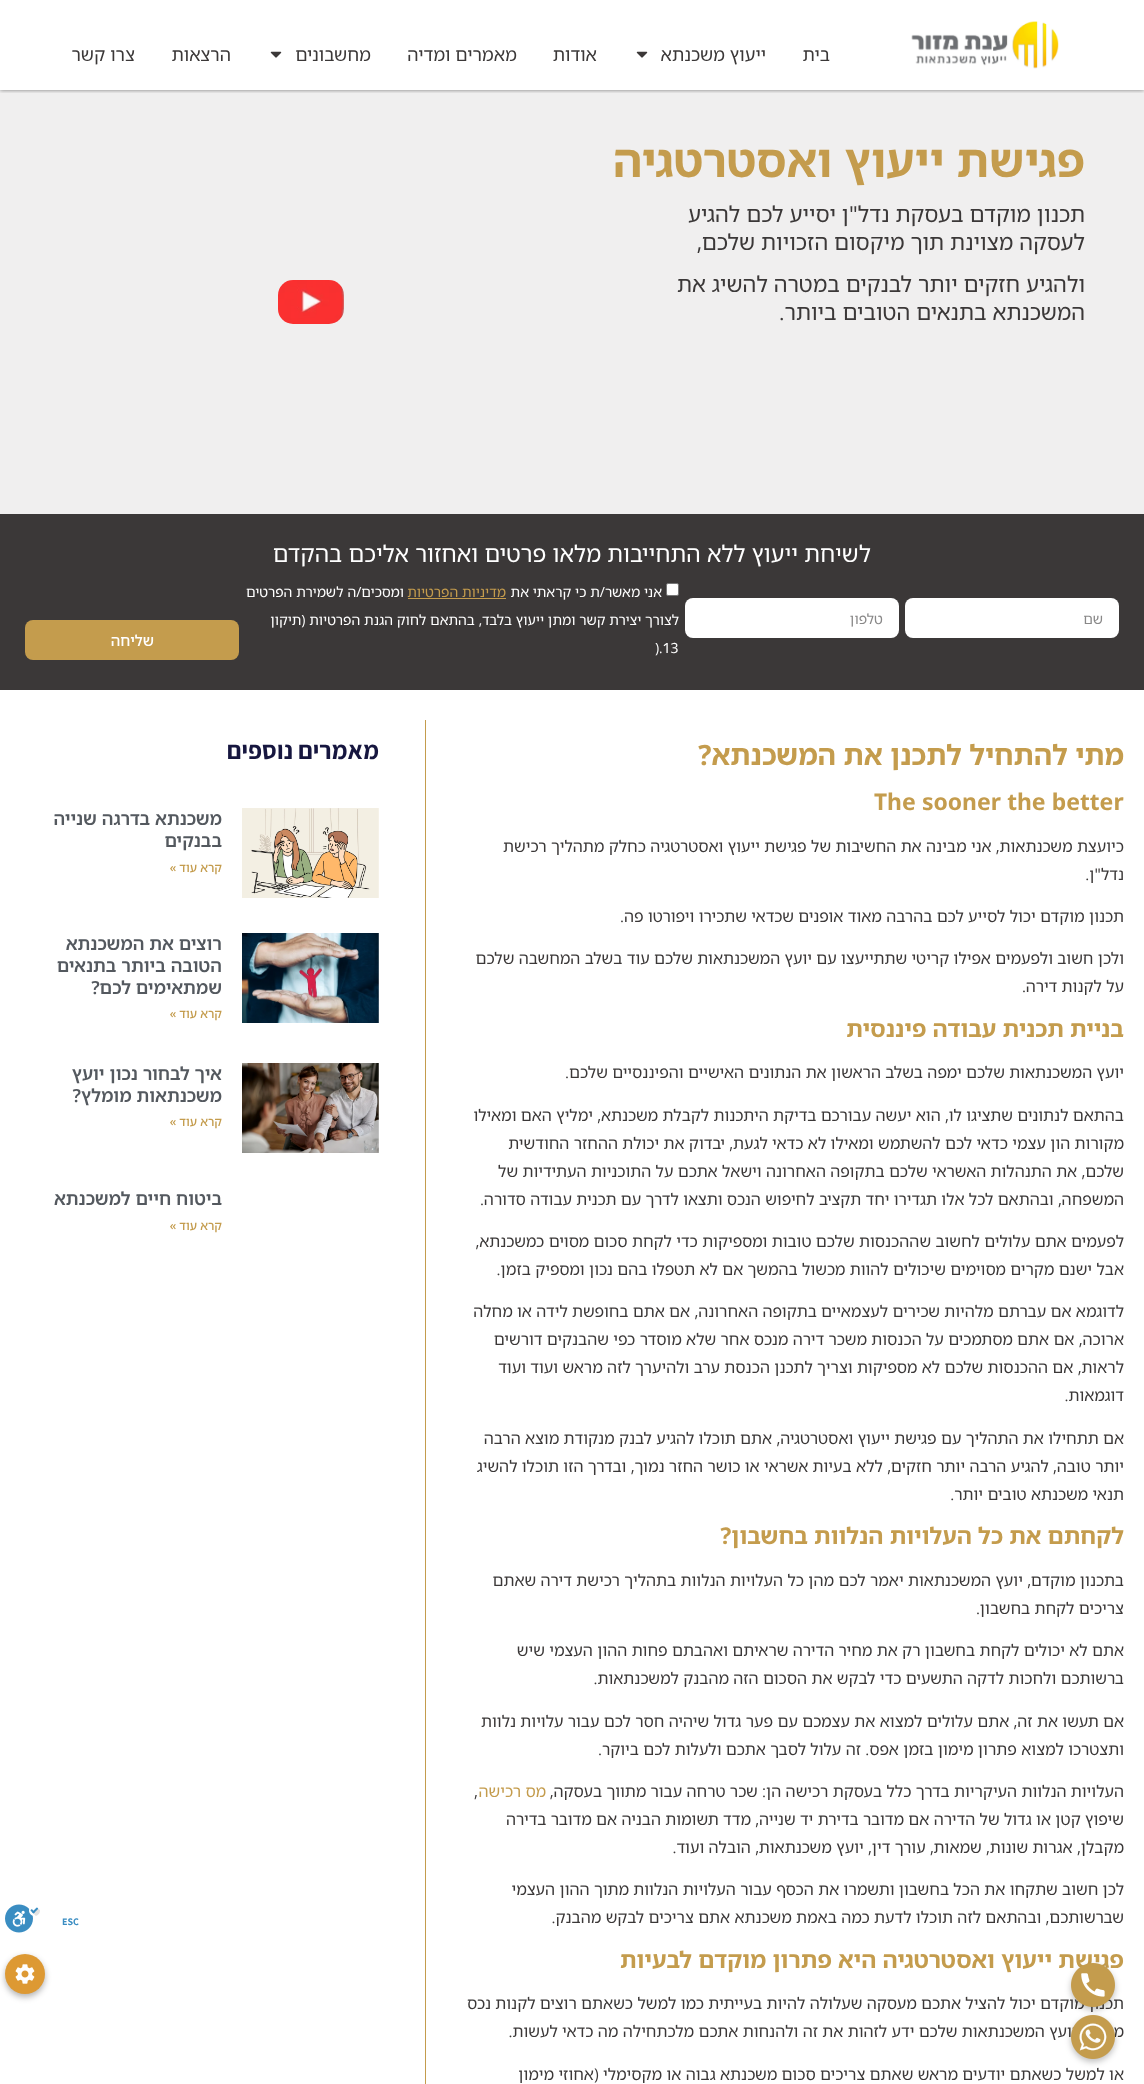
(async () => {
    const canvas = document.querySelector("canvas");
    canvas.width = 1144;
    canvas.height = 2084;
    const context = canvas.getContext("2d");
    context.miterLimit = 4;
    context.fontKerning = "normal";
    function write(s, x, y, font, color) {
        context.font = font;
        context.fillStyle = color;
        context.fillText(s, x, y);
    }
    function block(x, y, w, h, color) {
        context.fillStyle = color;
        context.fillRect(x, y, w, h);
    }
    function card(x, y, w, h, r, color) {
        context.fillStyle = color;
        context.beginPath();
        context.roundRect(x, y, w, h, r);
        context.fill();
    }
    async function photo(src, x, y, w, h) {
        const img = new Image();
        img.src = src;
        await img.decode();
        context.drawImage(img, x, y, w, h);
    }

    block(0, 0, 1144, 2084, "rgb(255, 255, 255)");
    block(0, 90, 1144, 424, "rgb(240, 239, 239)");
    context.save();
    context.beginPath();
    context.rect(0, 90, 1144, 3);
    context.clip();
    context.fillStyle = "rgba(0, 0, 0, 0.5)";
    context.filter = "blur(2px)";
    context.beginPath();
    context.rect(0, 0, 1144, 90);
    context.fill();
    context.filter = "none";
    context.restore();
    await photo("media/1.png", 911, 21, 148, 48);
    context.direction = "rtl";
    write("בית", 830, 61, "18px Noto Sans Hebrew", "rgb(59, 56, 56)");
    write("ייעוץ משכנתא", 766, 61, "18px Noto Sans Hebrew", "rgb(59, 56, 56)");
    await photo("media/2.png", 636, 51, 12, 7);
    write("אודות", 597, 61, "18px Noto Sans Hebrew", "rgb(59, 56, 56)");
    write("מאמרים ומדיה", 517, 61, "18px Noto Sans Hebrew", "rgb(59, 56, 56)");
    write("מחשבונים", 371, 61, "18px Noto Sans Hebrew", "rgb(59, 56, 56)");
    await photo("media/2.png", 270, 51, 12, 7);
    write("הרצאות", 231, 61, "18px Noto Sans Hebrew", "rgb(59, 56, 56)");
    write("צרו קשר", 135, 61, "18px Noto Sans Hebrew", "rgb(59, 56, 56)");
    write("פגישת ייעוץ ואסטרטגיה", 1085, 177, "bold 45px Noto Sans Hebrew", "rgb(196, 156, 77)");
    write("תכנון מוקדם בעסקת נדל\"ן יסייע לכם להגיע", 1085, 222, "22px Noto Sans Hebrew", "rgb(59, 56, 56)");
    write("לעסקה מצוינת תוך מיקסום הזכויות שלכם,", 1085, 250, "22px Noto Sans Hebrew", "rgb(59, 56, 56)");
    write("ולהגיע חזקים יותר לבנקים במטרה להשיג את", 1085, 292, "22px Noto Sans Hebrew", "rgb(59, 56, 56)");
    write("המשכנתא בתנאים הטובים ביותר.", 1085, 320, "22px Noto Sans Hebrew", "rgb(59, 56, 56)");
    await photo("media/3.png", 278, 280, 66, 44);
    block(0, 514, 1144, 176, "rgb(59, 56, 56)");
    write("לשיחת ייעוץ ללא התחייבות מלאו פרטים ואחזור אליכם בהקדם", 871, 562, "23px Noto Sans Hebrew", "rgb(255, 255, 255)");
    card(905, 598, 214, 40, 8, "rgb(255, 255, 255)");
    write("שם", 1103, 624, "14px Noto Sans Hebrew", "rgb(137, 136, 136)");
    card(685, 598, 214, 40, 8, "rgb(255, 255, 255)");
    write("טלפון", 883, 624, "14px Noto Sans Hebrew", "rgb(137, 136, 136)");
    context.fillStyle = "rgb(255, 255, 255)";
    context.beginPath();
    context.roundRect(666.5, 583.5, 12, 12, 1.5);
    context.fill();
    context.strokeStyle = "rgb(118, 118, 118)";
    context.stroke();
    write("אני מאשר/ת כי קראתי את", 662, 597, "14px Noto Sans Hebrew", "rgb(255, 255, 255)");
    write("מדיניות הפרטיות", 506, 597, "14px Noto Sans Hebrew", "rgb(196, 156, 77)");
    block(408, 598, 98, 1, "rgb(196, 156, 77)");
    write("ומסכים/ה לשמירת הפרטים", 404, 597, "14px Noto Sans Hebrew", "rgb(255, 255, 255)");
    write("לצורך יצירת קשר ומתן ייעוץ בלבד, בהתאם לחוק הגנת הפרטיות (תיקון", 679, 625, "14px Noto Sans Hebrew", "rgb(255, 255, 255)");
    context.direction = "ltr";
    write(").13", 655, 653, "14px Noto Sans Hebrew", "rgb(255, 255, 255)");
    card(25, 620, 214, 40, 8, "rgb(196, 156, 77)");
    context.direction = "rtl";
    write("שליחה", 154, 646, "500 15px Noto Sans Hebrew", "rgb(255, 255, 255)");
    write("מתי להתחיל לתכנן את המשכנתא?", 1124, 765, "bold 28px Noto Sans Hebrew", "rgb(196, 156, 77)");
    context.direction = "ltr";
    write("The sooner the better", 874, 810, "bold 23px Noto Sans Hebrew", "rgb(196, 156, 77)");
    context.direction = "rtl";
    write("כיועצת משכנתאות, אני מבינה את החשיבות של פגישת ייעוץ ואסטרטגיה כחלק מתהליך רכישת", 1124, 852, "16px Noto Sans Hebrew", "rgb(59, 56, 56)");
    write("נדל\"ן.", 1124, 880, "16px Noto Sans Hebrew", "rgb(59, 56, 56)");
    write("תכנון מוקדם יכול לסייע לכם בהרבה מאוד אופנים שכדאי שתכירו ויפורטו פה.", 1124, 922, "16px Noto Sans Hebrew", "rgb(59, 56, 56)");
    write("ולכן חשוב ולפעמים אפילו קריטי שתתייעצו עם יועץ המשכנתאות שלכם עוד בשלב המחשבה שלכם", 1124, 964, "16px Noto Sans Hebrew", "rgb(59, 56, 56)");
    write("על לקנות דירה.", 1124, 992, "16px Noto Sans Hebrew", "rgb(59, 56, 56)");
    write("בניית תכנית עבודה פיננסית", 1124, 1037, "bold 23px Noto Sans Hebrew", "rgb(196, 156, 77)");
    write("יועץ המשכנתאות שלכם ימפה בשלב הראשון את הנתונים האישיים והפיננסיים שלכם.", 1124, 1078, "16px Noto Sans Hebrew", "rgb(59, 56, 56)");
    write("בהתאם לנתונים שתציגו לו, הוא יעשה עבורכם בדיקת היתכנות לקבלת משכנתא, ימליץ האם ומאילו", 1124, 1121, "16px Noto Sans Hebrew", "rgb(59, 56, 56)");
    write("מקורות הון עצמי כדאי לכם להשתמש ומאילו לא כדאי לגעת, יבדוק את יכולת ההחזר החודשית", 1124, 1149, "16px Noto Sans Hebrew", "rgb(59, 56, 56)");
    write("שלכם, את התנהלות האשראי שלכם בתקופה האחרונה וישאל אתכם על התוכניות העתידיות של", 1124, 1177, "16px Noto Sans Hebrew", "rgb(59, 56, 56)");
    write("המשפחה, ובהתאם לכל אלו תגדירו יחד תקציב לחיפוש הנכס ותצאו לדרך עם תכנית עבודה סדורה.", 1124, 1205, "16px Noto Sans Hebrew", "rgb(59, 56, 56)");
    write("לפעמים אתם עלולים לחשוב שההכנסות שלכם טובות ומספיקות כדי לקחת סכום מסוים כמשכנתא,", 1124, 1247, "16px Noto Sans Hebrew", "rgb(59, 56, 56)");
    write("אבל ישנם מקרים מסוימים שיכולים להוות מכשול בהמשך אם לא תטפלו בהם נכון ומספיק בזמן.", 1124, 1275, "16px Noto Sans Hebrew", "rgb(59, 56, 56)");
    write("לדוגמא אם עברתם מלהיות שכירים לעצמאיים בתקופה האחרונה, אם אתם בחופשת לידה או מחלה", 1124, 1317, "16px Noto Sans Hebrew", "rgb(59, 56, 56)");
    write("ארוכה, אם אתם מסתמכים על הכנסות משכר דירה מנכס אחר שלא מוסדר כפי שהבנקים דורשים", 1124, 1345, "16px Noto Sans Hebrew", "rgb(59, 56, 56)");
    write("לראות, אם ההכנסות שלכם לא מספיקות וצריך לתכנן הכנסת ערב ולהיערך לזה מראש ועוד ועוד", 1124, 1373, "16px Noto Sans Hebrew", "rgb(59, 56, 56)");
    write("דוגמאות.", 1124, 1401, "16px Noto Sans Hebrew", "rgb(59, 56, 56)");
    write("אם תתחילו את התהליך עם פגישת ייעוץ ואסטרטגיה, אתם תוכלו להגיע לבנק מנקודת מוצא הרבה", 1124, 1444, "16px Noto Sans Hebrew", "rgb(59, 56, 56)");
    write("יותר טובה, להגיע הרבה יותר חזקים, ללא בעיות אשראי או כושר החזר נמוך, ובדרך הזו תוכלו להשיג", 1124, 1472, "16px Noto Sans Hebrew", "rgb(59, 56, 56)");
    write("תנאי משכנתא טובים יותר.", 1124, 1500, "16px Noto Sans Hebrew", "rgb(59, 56, 56)");
    write("לקחתם את כל העלויות הנלוות בחשבון?", 1124, 1544, "bold 23px Noto Sans Hebrew", "rgb(196, 156, 77)");
    write("בתכנון מוקדם, יועץ המשכנתאות יאמר לכם מהן כל העלויות הנלוות בתהליך רכישת דירה שאתם", 1124, 1586, "16px Noto Sans Hebrew", "rgb(59, 56, 56)");
    write("צריכים לקחת בחשבון.", 1124, 1614, "16px Noto Sans Hebrew", "rgb(59, 56, 56)");
    write("אתם לא יכולים לקחת בחשבון רק את מחיר הדירה שראיתם ואהבתם פחות ההון העצמי שיש", 1124, 1656, "16px Noto Sans Hebrew", "rgb(59, 56, 56)");
    write("ברשותכם ולחכות לדקה התשעים כדי לבקש את הסכום הזה מהבנק למשכנתאות.", 1124, 1684, "16px Noto Sans Hebrew", "rgb(59, 56, 56)");
    write("אם תעשו את זה, אתם עלולים למצוא את עצמכם עם פער גדול שיהיה חסר לכם עבור עלויות נלוות", 1124, 1727, "16px Noto Sans Hebrew", "rgb(59, 56, 56)");
    write("ותצטרכו למצוא פתרון מימון בזמן אפס. זה עלול לסבך אתכם ולעלות לכם ביוקר.", 1124, 1755, "16px Noto Sans Hebrew", "rgb(59, 56, 56)");
    write("העלויות הנלוות העיקריות בדרך כלל בעסקת רכישה הן: שכר טרחה עבור מתווך בעסקה,", 1124, 1797, "16px Noto Sans Hebrew", "rgb(59, 56, 56)");
    write("מס רכישה", 546, 1797, "16px Noto Sans Hebrew", "rgb(196, 156, 77)");
    context.direction = "ltr";
    write(",", 474, 1797, "16px Noto Sans Hebrew", "rgb(59, 56, 56)");
    context.direction = "rtl";
    write("שיפוץ קטן או גדול של הדירה אם מדובר בדירת יד שנייה, מדד תשומות הבניה אם מדובר בדירה", 1124, 1825, "16px Noto Sans Hebrew", "rgb(59, 56, 56)");
    write("מקבלן, אגרות שונות, שמאות, עורך דין, יועץ משכנתאות, הובלה ועוד.", 1124, 1853, "16px Noto Sans Hebrew", "rgb(59, 56, 56)");
    write("לכן חשוב שתקחו את הכל בחשבון ותשמרו את הכסף עבור העלויות הנלוות מתוך ההון העצמי", 1124, 1895, "16px Noto Sans Hebrew", "rgb(59, 56, 56)");
    write("שברשותכם, ובהתאם לזה תוכלו לדעת כמה באמת משכנתא אתם צריכים לבקש מהבנק.", 1124, 1923, "16px Noto Sans Hebrew", "rgb(59, 56, 56)");
    write("פגישת ייעוץ ואסטרטגיה היא פתרון מוקדם לבעיות", 1124, 1968, "bold 23px Noto Sans Hebrew", "rgb(196, 156, 77)");
    write("תכנון מוקדם יכול להציל אתכם מעסקה שעלולה להיות בעייתית כמו למשל כשאתם רוצים לקנות נכס", 1124, 2009, "16px Noto Sans Hebrew", "rgb(59, 56, 56)");
    write("מיוחד, יועץ המשכנתאות שלכם ידע לזהות את זה ולהנחות אתכם מלכתחילה מה כדאי לעשות.", 1124, 2037, "16px Noto Sans Hebrew", "rgb(59, 56, 56)");
    write("או למשל כשאתם יודעים מראש שאתם צריכים סכום משכנתא גבוה או מקסימלי (אחוזי מימון", 1124, 2080, "16px Noto Sans Hebrew", "rgb(59, 56, 56)");
    block(425, 720, 1, 1364, "rgb(196, 156, 77)");
    write("מאמרים נוספים", 379, 759, "bold 25px Assistant", "rgb(22, 22, 63)");
    await photo("media/4.png", 242, 808, 137, 90);
    write("משכנתא בדרגה שנייה", 222, 825, "600 18px Noto Sans Hebrew", "rgb(84, 89, 95)");
    write("בבנקים", 222, 847, "600 18px Noto Sans Hebrew", "rgb(84, 89, 95)");
    write("קרא עוד »", 222, 872, "500 12px Noto Sans Hebrew", "rgb(196, 156, 77)");
    await photo("media/5.png", 242, 933, 137, 90);
    write("רוצים את המשכנתא", 222, 950, "600 18px Noto Sans Hebrew", "rgb(84, 89, 95)");
    write("הטובה ביותר בתנאים", 222, 972, "600 18px Noto Sans Hebrew", "rgb(84, 89, 95)");
    write("שמתאימים לכם?", 222, 994, "600 18px Noto Sans Hebrew", "rgb(84, 89, 95)");
    write("קרא עוד »", 222, 1018, "500 12px Noto Sans Hebrew", "rgb(196, 156, 77)");
    await photo("media/6.png", 242, 1063, 137, 90);
    write("איך לבחור נכון יועץ", 222, 1080, "600 18px Noto Sans Hebrew", "rgb(84, 89, 95)");
    write("משכנתאות מומלץ?", 222, 1102, "600 18px Noto Sans Hebrew", "rgb(84, 89, 95)");
    write("קרא עוד »", 222, 1126, "500 12px Noto Sans Hebrew", "rgb(196, 156, 77)");
    write("ביטוח חיים למשכנתא", 222, 1205, "600 18px Noto Sans Hebrew", "rgb(84, 89, 95)");
    write("קרא עוד »", 222, 1230, "500 12px Noto Sans Hebrew", "rgb(196, 156, 77)");
    context.direction = "ltr";
    write("ESC", 62, 1925, "bold 10px Assistant", "rgb(58, 141, 194)");
    await photo("media/7.png", 5, 1904, 35, 29);
    context.fillStyle = "rgba(0, 0, 0, 0.25)";
    context.filter = "blur(3px)";
    context.beginPath();
    context.roundRect(1071, 1966, 44, 44, 22);
    context.fill();
    context.filter = "none";
    await photo("media/8.png", 1071, 1963, 44, 44);
    context.filter = "blur(3px)";
    context.beginPath();
    context.roundRect(1071, 2018, 44, 44, 22);
    context.fill();
    context.filter = "none";
    await photo("media/9.png", 1071, 2015, 44, 44);
    context.fillStyle = "rgba(0, 0, 0, 0.3)";
    context.filter = "blur(3px)";
    context.beginPath();
    context.roundRect(5, 1957, 40, 40, 20);
    context.fill();
    context.filter = "none";
    context.fillStyle = "rgb(221, 153, 51)";
    context.beginPath();
    context.arc(25, 1974, 20, 0, Math.PI * 2);
    context.fill();
    await photo("media/10.png", 15, 1964, 20, 20);
})();
